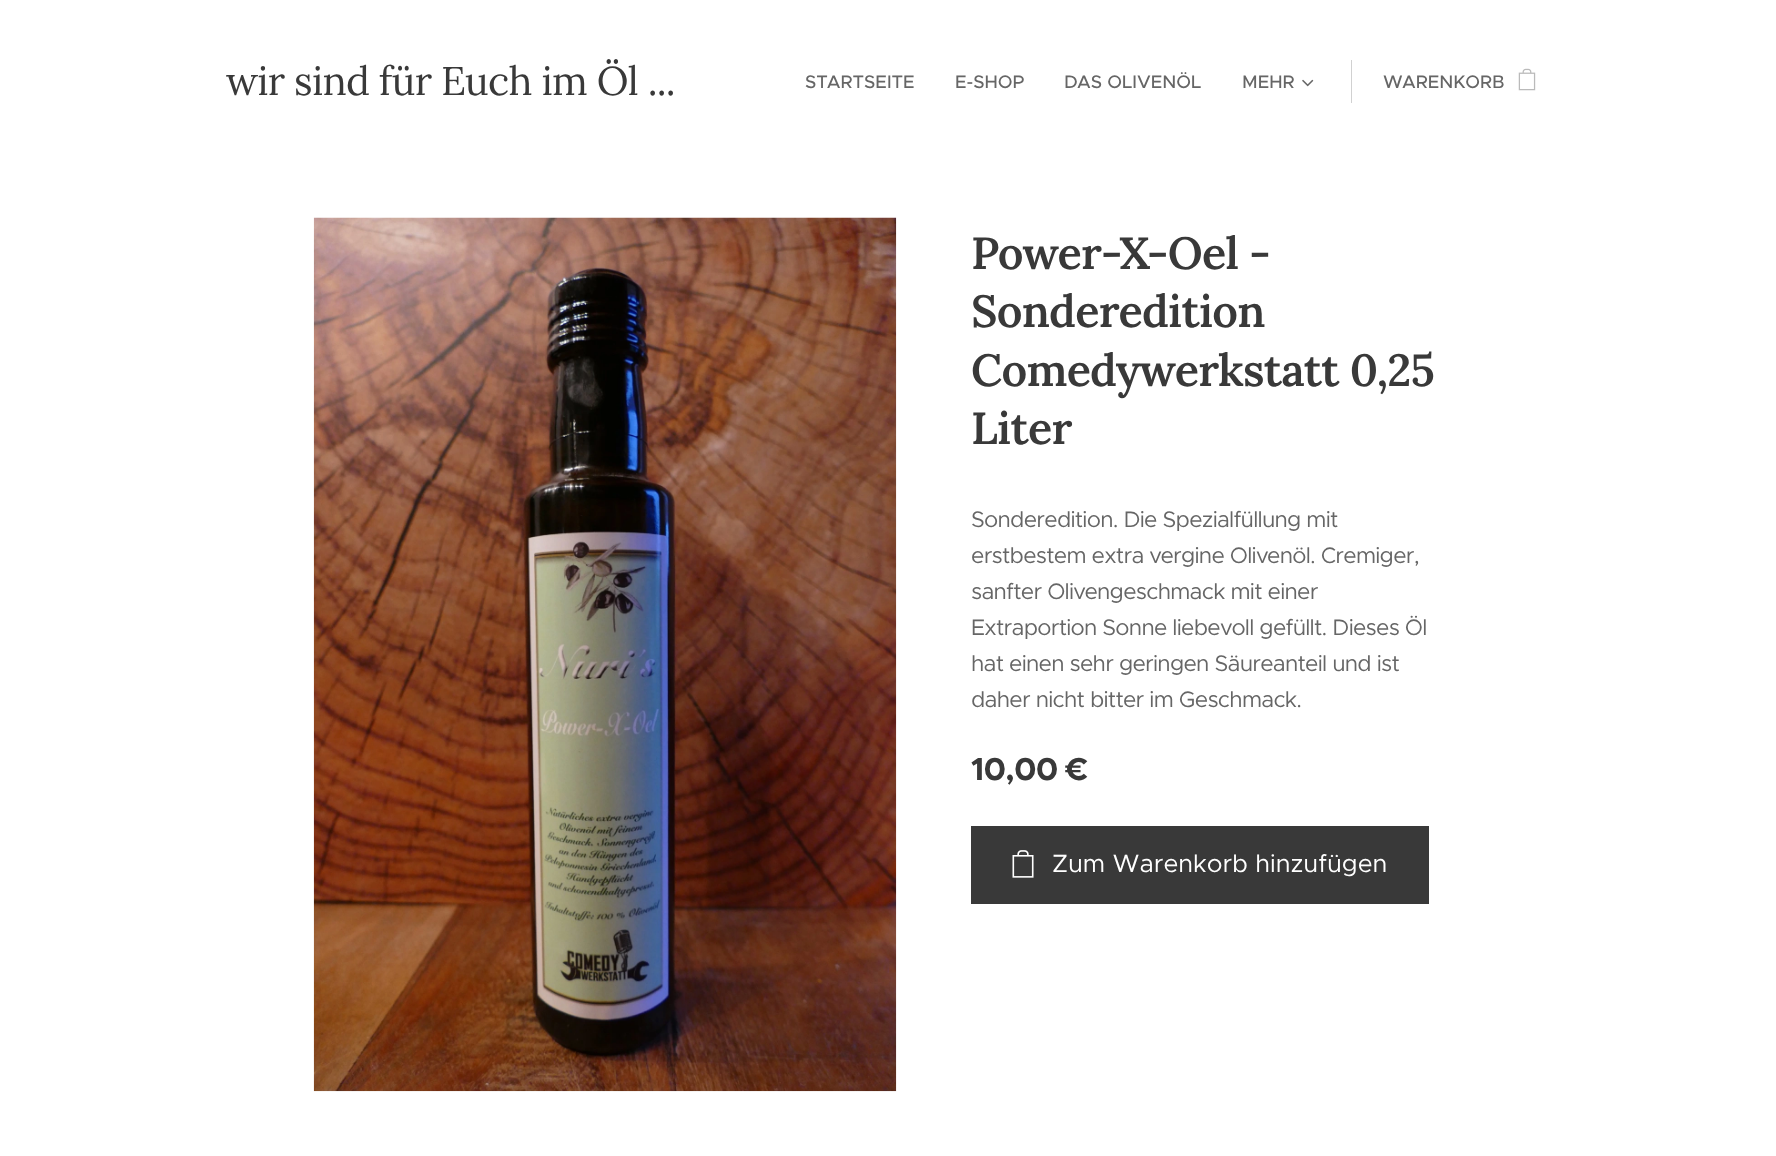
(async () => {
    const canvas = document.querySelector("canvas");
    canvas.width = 1776;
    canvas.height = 1156;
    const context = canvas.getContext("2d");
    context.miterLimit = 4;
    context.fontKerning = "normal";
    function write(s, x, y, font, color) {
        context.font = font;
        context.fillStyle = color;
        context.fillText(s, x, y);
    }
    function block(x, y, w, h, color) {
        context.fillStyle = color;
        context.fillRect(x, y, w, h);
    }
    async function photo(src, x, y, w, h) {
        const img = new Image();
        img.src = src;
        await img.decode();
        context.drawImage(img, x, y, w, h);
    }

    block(0, 0, 1776, 1156, "rgb(255, 255, 255)");
    context.letterSpacing = "-0.75px";
    write("wir sind für Euch im Öl ...", 226, 95, "40px Lora", "rgb(57, 57, 57)");
    context.letterSpacing = "0px";
    write("STARTSEITE", 805, 88, "500 18.25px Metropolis", "rgb(102, 102, 102)");
    write("E-SHOP", 955, 88, "500 18.25px Metropolis", "rgb(102, 102, 102)");
    write("DAS OLIVENÖL", 1064, 88, "500 18.25px Metropolis", "rgb(102, 102, 102)");
    write("MEHR", 1242, 88, "500 18.25px Metropolis", "rgb(102, 102, 102)");
    await photo("media/1.png", 1302, 79, 12, 8);
    block(1351, 60, 1, 43, "rgb(209, 209, 209)");
    write("WARENKORB", 1383, 88, "500 18.25px Metropolis", "rgb(102, 102, 102)");
    await photo("media/2.png", 1518, 68, 18, 23);
    await photo("media/3.png", 313, 217, 584, 875);
    context.letterSpacing = "-0.75px";
    write("Power-X-Oel -", 971, 269, "600 45px Lora", "rgb(57, 57, 57)");
    write("Sonderedition", 971, 327, "600 45px Lora", "rgb(57, 57, 57)");
    write("Comedywerkstatt 0,25", 971, 386, "600 45px Lora", "rgb(57, 57, 57)");
    write("Liter", 971, 444, "600 45px Lora", "rgb(57, 57, 57)");
    write("Sonderedition. Die Spezialfüllung mit", 971, 527, "22.5px Metropolis", "rgb(102, 102, 102)");
    write("erstbestem extra vergine Olivenöl. Cremiger,", 971, 563, "22.5px Metropolis", "rgb(102, 102, 102)");
    write("sanfter Olivengeschmack mit einer", 971, 599, "22.5px Metropolis", "rgb(102, 102, 102)");
    write("Extraportion Sonne liebevoll gefüllt. Dieses Öl", 971, 635, "22.5px Metropolis", "rgb(102, 102, 102)");
    write("hat einen sehr geringen Säureanteil und ist", 971, 671, "22.5px Metropolis", "rgb(102, 102, 102)");
    write("daher nicht bitter im Geschmack.", 971, 707, "22.5px Metropolis", "rgb(102, 102, 102)");
    write("10,00 €", 971, 780, "bold 32px Metropolis", "rgb(57, 57, 57)");
    block(971, 826, 458, 78, "rgb(57, 57, 57)");
    await photo("media/4.png", 1012, 850, 22, 28);
    context.letterSpacing = "0px";
    write("Zum Warenkorb hinzufügen", 1052, 872, "25px Metropolis", "rgb(255, 255, 255)");
})();
